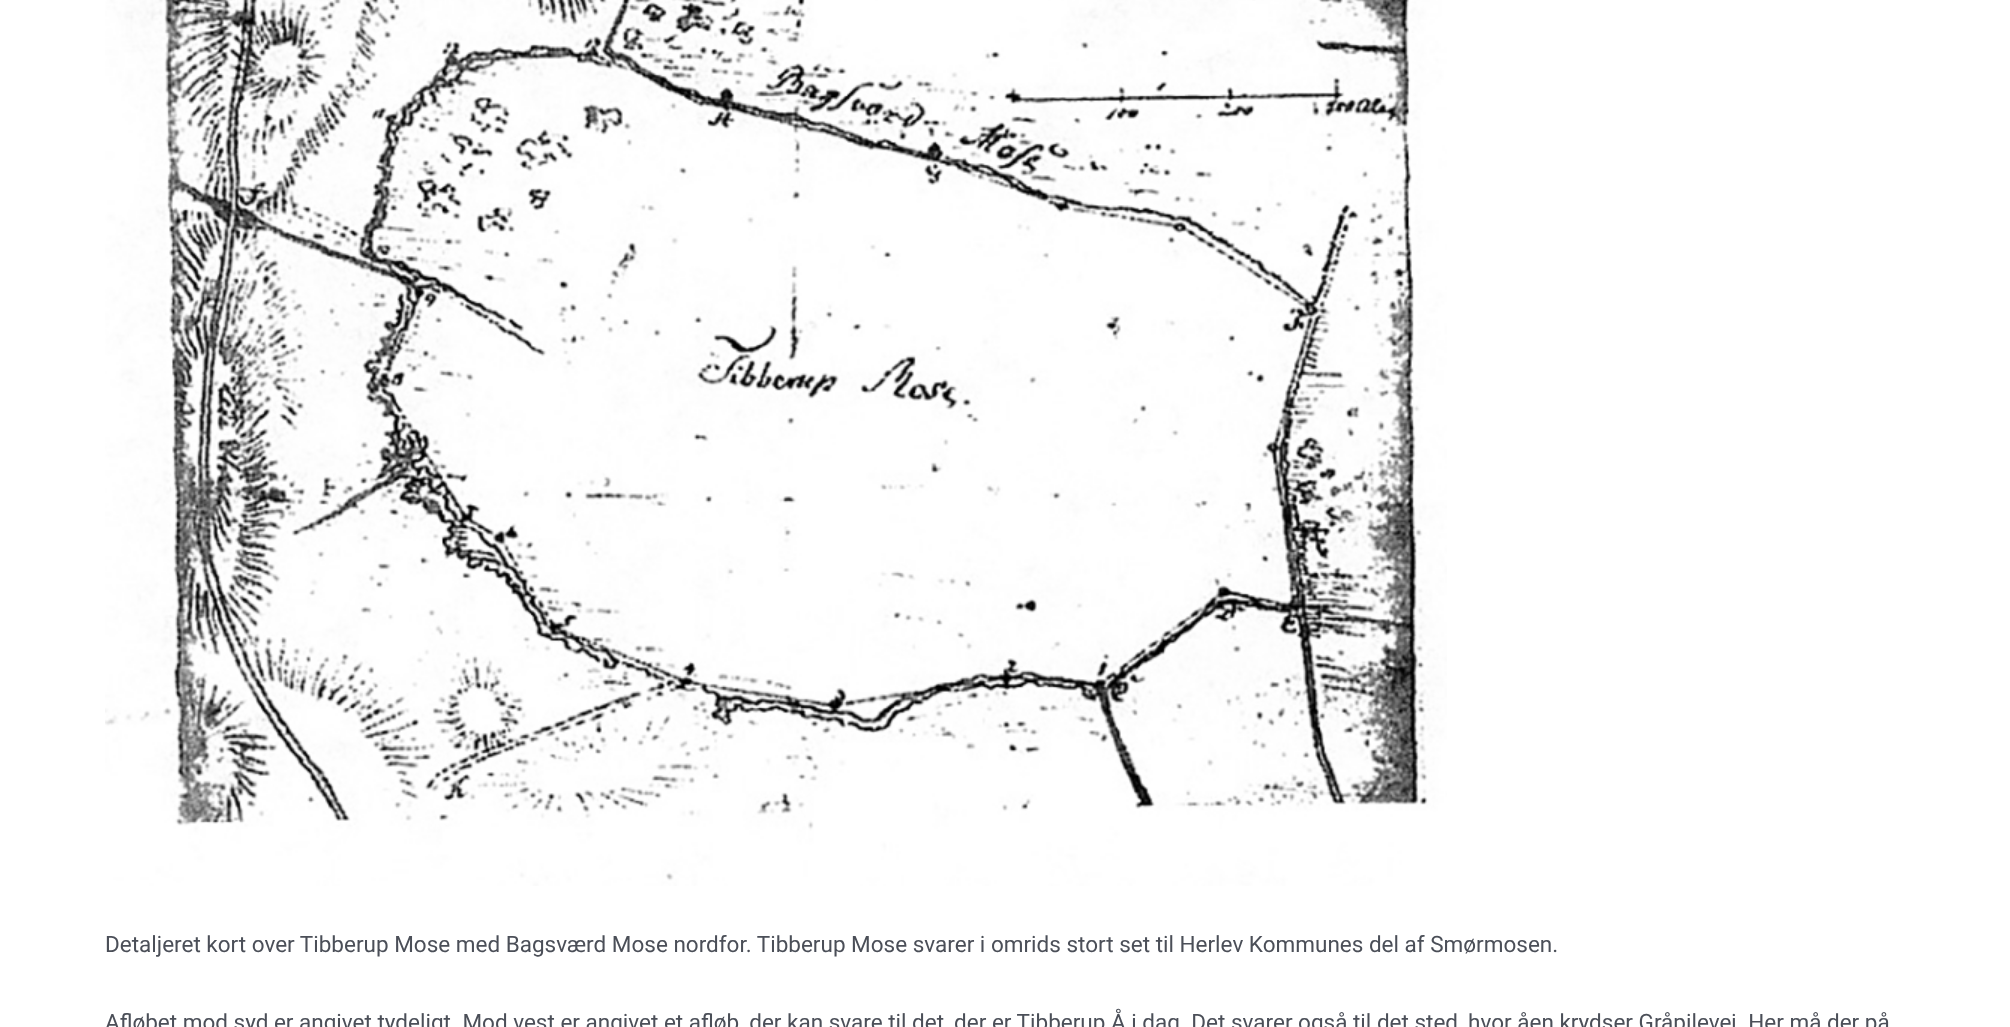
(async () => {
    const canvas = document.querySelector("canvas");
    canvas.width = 2010;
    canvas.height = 1027;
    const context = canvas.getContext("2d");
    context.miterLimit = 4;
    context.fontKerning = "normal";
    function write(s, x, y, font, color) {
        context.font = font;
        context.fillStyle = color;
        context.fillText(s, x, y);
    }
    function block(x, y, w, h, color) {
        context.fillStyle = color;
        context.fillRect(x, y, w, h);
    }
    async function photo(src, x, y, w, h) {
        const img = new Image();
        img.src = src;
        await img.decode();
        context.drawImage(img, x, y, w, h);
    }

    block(0, 0, 2010, 1027, "rgb(255, 255, 255)");
    await photo("media/1.png", 105, 0, 1342, 886);
    write("Detaljeret kort over Tibberup Mose med Bagsværd Mose nordfor. Tibberup Mose svarer i omrids stort set til Herlev Kommunes del af Smørmosen.", 105, 952, "22.5px Roboto", "rgb(75, 79, 88)");
    write("Afløbet mod syd er angivet tydeligt. Mod vest er angivet et afløb, der kan svare til det, der er Tibberup Å i dag. Det svarer også til det sted, hvor åen krydser Gråpilevej. Her må der på", 105, 1030, "22.5px Roboto", "rgb(75, 79, 88)");
})();
